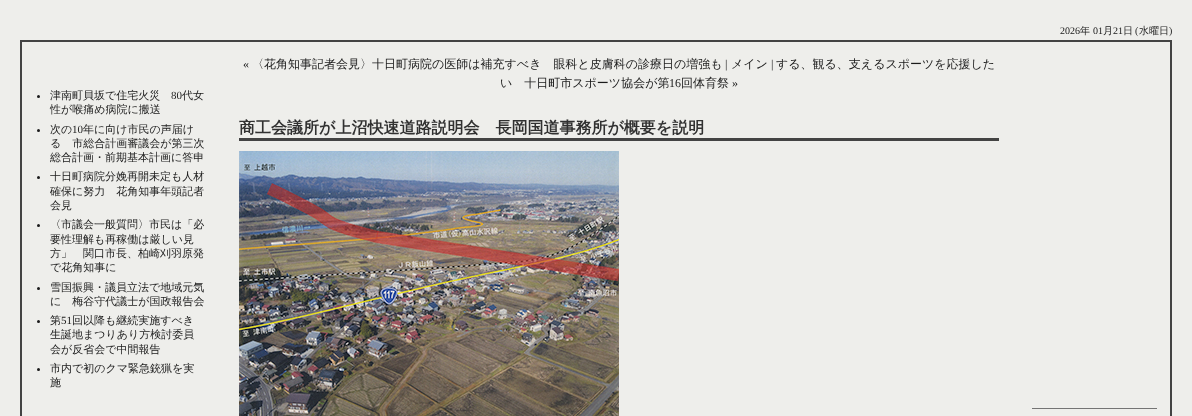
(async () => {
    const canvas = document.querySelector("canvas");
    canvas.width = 1192;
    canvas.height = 416;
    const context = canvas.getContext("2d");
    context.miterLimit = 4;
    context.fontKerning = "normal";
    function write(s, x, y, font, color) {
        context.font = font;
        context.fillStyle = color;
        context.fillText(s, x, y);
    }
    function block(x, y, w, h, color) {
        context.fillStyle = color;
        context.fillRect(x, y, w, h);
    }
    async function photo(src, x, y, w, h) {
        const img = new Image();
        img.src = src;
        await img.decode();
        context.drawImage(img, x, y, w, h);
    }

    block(0, 0, 1192, 416, "rgb(238, 238, 235)");
    write("2026", 1060, 34, "10px Liberation Serif", "rgb(27, 27, 27)");
    write("年", 1080, 34, "500 10px WenQuanYi Zen Hei", "rgb(27, 27, 27)");
    write("01", 1093, 34, "10px Liberation Serif", "rgb(27, 27, 27)");
    write("月", 1103, 34, "500 10px WenQuanYi Zen Hei", "rgb(27, 27, 27)");
    write("21", 1113, 34, "10px Liberation Serif", "rgb(27, 27, 27)");
    write("日", 1123, 34, "500 10px WenQuanYi Zen Hei", "rgb(27, 27, 27)");
    write("(", 1135, 34, "10px Liberation Serif", "rgb(27, 27, 27)");
    write("水曜日", 1139, 34, "500 10px WenQuanYi Zen Hei", "rgb(27, 27, 27)");
    write(")", 1169, 34, "10px Liberation Serif", "rgb(27, 27, 27)");
    context.strokeStyle = "rgb(67, 67, 67)";
    context.lineWidth = 2;
    context.strokeRect(21, 41, 1150, 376);
    context.beginPath();
    context.arc(38.5, 96.5, 1.5, 0, Math.PI * 2);
    context.fill();
    write("津南町貝坂で住宅火災", 50, 99, "500 11px WenQuanYi Zen Hei", "rgb(27, 27, 27)");
    write("80", 171, 99, "11px Liberation Serif", "rgb(27, 27, 27)");
    write("代女", 182, 99, "500 11px WenQuanYi Zen Hei", "rgb(27, 27, 27)");
    write("性が喉痛め病院に搬送", 50, 113, "500 11px WenQuanYi Zen Hei", "rgb(27, 27, 27)");
    context.beginPath();
    context.arc(38.5, 130.5, 1.5, 0, Math.PI * 2);
    context.fill();
    write("次の", 50, 133, "500 11px WenQuanYi Zen Hei", "rgb(27, 27, 27)");
    write("10", 72, 133, "11px Liberation Serif", "rgb(27, 27, 27)");
    write("年に向け市民の声届け", 83, 133, "500 11px WenQuanYi Zen Hei", "rgb(27, 27, 27)");
    write("る　市総合計画審議会が第三次", 50, 147, "500 11px WenQuanYi Zen Hei", "rgb(27, 27, 27)");
    write("総合計画・前期基本計画に答申", 50, 161, "500 11px WenQuanYi Zen Hei", "rgb(27, 27, 27)");
    context.beginPath();
    context.arc(38.5, 177.5, 1.5, 0, Math.PI * 2);
    context.fill();
    write("十日町病院分娩再開未定も人材", 50, 180, "500 11px WenQuanYi Zen Hei", "rgb(27, 27, 27)");
    write("確保に努力　花角知事年頭記者", 50, 195, "500 11px WenQuanYi Zen Hei", "rgb(27, 27, 27)");
    write("会見", 50, 209, "500 11px WenQuanYi Zen Hei", "rgb(27, 27, 27)");
    context.beginPath();
    context.arc(38.5, 225.5, 1.5, 0, Math.PI * 2);
    context.fill();
    write("〈市議会一般質問〉市民は「必", 50, 228, "500 11px WenQuanYi Zen Hei", "rgb(27, 27, 27)");
    write("要性理解も再稼働は厳しい見", 50, 243, "500 11px WenQuanYi Zen Hei", "rgb(27, 27, 27)");
    write("方」　関口市長、柏崎刈羽原発", 50, 257, "500 11px WenQuanYi Zen Hei", "rgb(27, 27, 27)");
    write("で花角知事に", 50, 271, "500 11px WenQuanYi Zen Hei", "rgb(27, 27, 27)");
    context.beginPath();
    context.arc(38.5, 288.5, 1.5, 0, Math.PI * 2);
    context.fill();
    write("雪国振興・議員立法で地域元気", 50, 291, "500 11px WenQuanYi Zen Hei", "rgb(27, 27, 27)");
    write("に　梅谷守代議士が国政報告会", 50, 305, "500 11px WenQuanYi Zen Hei", "rgb(27, 27, 27)");
    context.beginPath();
    context.arc(38.5, 321.5, 1.5, 0, Math.PI * 2);
    context.fill();
    write("第", 50, 324, "500 11px WenQuanYi Zen Hei", "rgb(27, 27, 27)");
    write("51", 61, 324, "11px Liberation Serif", "rgb(27, 27, 27)");
    write("回以降も継続実施すべき", 72, 324, "500 11px WenQuanYi Zen Hei", "rgb(27, 27, 27)");
    write("生誕地まつりあり方検討委員", 50, 338, "500 11px WenQuanYi Zen Hei", "rgb(27, 27, 27)");
    write("会が反省会で中間報告", 50, 353, "500 11px WenQuanYi Zen Hei", "rgb(27, 27, 27)");
    context.beginPath();
    context.arc(38.5, 369.5, 1.5, 0, Math.PI * 2);
    context.fill();
    write("市内で初のクマ緊急銃猟を実", 50, 372, "500 11px WenQuanYi Zen Hei", "rgb(27, 27, 27)");
    write("施", 50, 386, "500 11px WenQuanYi Zen Hei", "rgb(27, 27, 27)");
    write("«", 243, 68, "12px Liberation Serif", "rgb(27, 27, 27)");
    write("〈花角知事記者会見〉十日町病院の医師は補充すべき　眼科と皮膚科の診療日の増強も", 252, 68, "500 12px WenQuanYi Zen Hei", "rgb(27, 27, 27)");
    write("|", 725, 68, "12px Liberation Serif", "rgb(27, 27, 27)");
    write("メイン", 731, 68, "500 12px WenQuanYi Zen Hei", "rgb(27, 27, 27)");
    write("|", 771, 68, "12px Liberation Serif", "rgb(27, 27, 27)");
    write("する、観る、支えるスポーツを応援した", 776, 68, "500 12px WenQuanYi Zen Hei", "rgb(27, 27, 27)");
    write("い　十日町市スポーツ協会が第", 500, 87, "500 12px WenQuanYi Zen Hei", "rgb(27, 27, 27)");
    write("16", 669, 87, "12px Liberation Serif", "rgb(27, 27, 27)");
    write("回体育祭", 681, 87, "500 12px WenQuanYi Zen Hei", "rgb(27, 27, 27)");
    write("»", 732, 87, "12px Liberation Serif", "rgb(27, 27, 27)");
    block(239, 138, 760, 3, "rgb(67, 67, 67)");
    write("商工会議所が上沼快速道路説明会　長岡国道事務所が概要を説明", 239, 133, "bold 16px WenQuanYi Zen Hei", "rgb(49, 49, 49)");
    await photo("media/1.png", 239, 151, 380, 265);
    block(1032, 408, 125, 1, "rgb(116, 116, 116)");
})();
